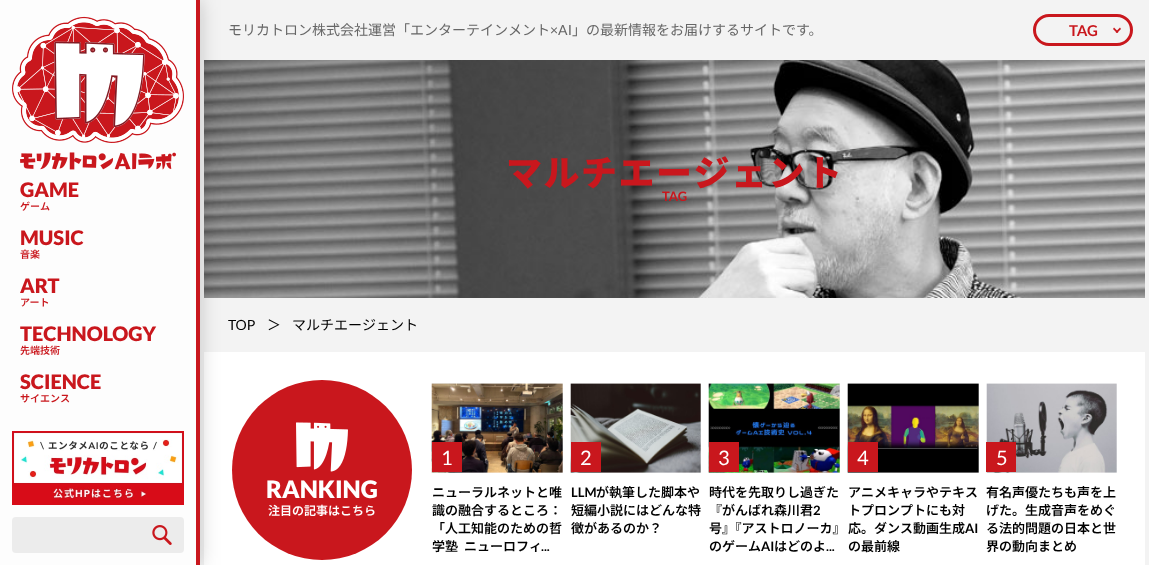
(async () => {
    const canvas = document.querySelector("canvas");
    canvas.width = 1149;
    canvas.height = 565;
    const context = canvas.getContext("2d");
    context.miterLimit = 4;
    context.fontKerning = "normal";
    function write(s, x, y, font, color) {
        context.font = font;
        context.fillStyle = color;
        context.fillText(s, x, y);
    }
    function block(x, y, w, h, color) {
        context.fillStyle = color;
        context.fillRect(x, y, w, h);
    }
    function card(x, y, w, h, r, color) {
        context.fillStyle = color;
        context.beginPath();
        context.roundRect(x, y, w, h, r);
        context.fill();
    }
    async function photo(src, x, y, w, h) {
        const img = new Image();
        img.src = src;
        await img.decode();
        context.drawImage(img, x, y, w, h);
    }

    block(0, 0, 1149, 565, "rgb(243, 243, 243)");
    await photo("media/5.png", 204, 60, 941, 238);
    block(204, 352, 941, 213, "rgb(255, 255, 255)");
    context.fillStyle = "rgba(0, 0, 0, 0.2)";
    context.filter = "blur(10px)";
    context.beginPath();
    context.rect(0, 0, 200, 565);
    context.fill();
    context.filter = "none";
    block(0, 0, 196, 565, "rgb(253, 253, 253)");
    block(196, 0, 4, 565, "rgb(201, 23, 29)");
    await photo("media/1.png", 12, 16, 172, 127);
    await photo("media/2.png", 20, 152, 156, 18);
    write("GAME", 20, 197, "900 20px Lato", "rgb(201, 23, 29)");
    write("ゲーム", 20, 210, "600 10px Noto Sans JP", "rgb(201, 23, 29)");
    write("MUSIC", 20, 245, "900 20px Lato", "rgb(201, 23, 29)");
    write("音楽", 20, 258, "600 10px Noto Sans JP", "rgb(201, 23, 29)");
    write("ART", 20, 293, "900 20px Lato", "rgb(201, 23, 29)");
    write("アート", 20, 306, "600 10px Noto Sans JP", "rgb(201, 23, 29)");
    write("TECHNOLOGY", 20, 341, "900 20px Lato", "rgb(201, 23, 29)");
    write("先端技術", 20, 354, "600 10px Noto Sans JP", "rgb(201, 23, 29)");
    write("SCIENCE", 20, 389, "900 20px Lato", "rgb(201, 23, 29)");
    write("サイエンス", 20, 402, "600 10px Noto Sans JP", "rgb(201, 23, 29)");
    await photo("media/3.png", 12, 431, 172, 74);
    card(12, 517, 172, 36, 4, "rgb(236, 236, 236)");
    await photo("media/4.png", 152, 525, 20, 20);
    write("モリカトロン株式会社運営「エンターテインメント", 228, 35, "14px Noto Sans JP", "rgb(102, 102, 102)");
    write("×AI", 550, 35, "14px Lato", "rgb(102, 102, 102)");
    write("」の最新情報をお届けするサイトです。", 572, 35, "14px Noto Sans JP", "rgb(102, 102, 102)");
    context.beginPath();
    context.roundRect(1034.5, 15.5, 97, 29, 14.5);
    context.strokeStyle = "rgb(201, 23, 29)";
    context.lineWidth = 3;
    context.stroke();
    write("TAG", 1069, 36, "bold 15px Lato", "rgb(201, 23, 29)");
    context.beginPath();
    context.moveTo(1120, 27.5);
    context.lineTo(1121, 29);
    context.lineTo(1117, 33);
    context.lineTo(1115.5, 32);
    context.closePath();
    context.fill();
    context.beginPath();
    context.moveTo(1114, 27.5);
    context.lineTo(1118.5, 32);
    context.lineTo(1117, 33);
    context.lineTo(1113, 29);
    context.closePath();
    context.fill();
    context.letterSpacing = "1.5px";
    write("マルチエージェント", 506, 186, "900 36px Noto Sans JP", "rgb(201, 23, 29)");
    context.letterSpacing = "0px";
    write("TAG", 662, 201, "bold 13px Lato", "rgb(201, 23, 29)");
    write("TOP", 228, 330, "14px Lato", "rgb(0, 0, 0)");
    write("＞", 267, 330, "14px Noto Sans JP", "rgb(0, 0, 0)");
    write("マルチエージェント", 292, 330, "14px Noto Sans JP", "rgb(0, 0, 0)");
    context.fillStyle = "rgb(201, 23, 29)";
    context.beginPath();
    context.arc(322, 470, 90, 0, Math.PI * 2);
    context.fill();
    await photo("media/6.png", 296, 422, 52, 50);
    write("RANKING", 266, 498, "900 24px Lato", "rgb(255, 255, 255)");
    write("注目の記事はこちら", 268, 515, "600 12px Noto Sans JP", "rgb(255, 255, 255)");
    await photo("media/7.png", 431, 383, 132, 90);
    block(432, 442, 30, 30, "rgb(201, 23, 29)");
    write("1", 441, 465, "20px Lato", "rgb(255, 255, 255)");
    write("ニューラルネットと唯", 432, 497, "600 13px Noto Sans JP", "rgb(0, 0, 0)");
    write("識の融合するところ：", 432, 515, "600 13px Noto Sans JP", "rgb(0, 0, 0)");
    write("「人工知能のための哲", 432, 533, "600 13px Noto Sans JP", "rgb(0, 0, 0)");
    write("学塾  ニューロフィ", 432, 551, "600 13px Noto Sans JP", "rgb(0, 0, 0)");
    write("...", 541, 551, "bold 13px Lato", "rgb(0, 0, 0)");
    await photo("media/8.png", 570, 383, 131, 90);
    block(571, 442, 30, 30, "rgb(201, 23, 29)");
    write("2", 580, 465, "20px Lato", "rgb(255, 255, 255)");
    write("LLM", 571, 497, "bold 13px Lato", "rgb(0, 0, 0)");
    write("が執筆した脚本や", 596, 497, "600 13px Noto Sans JP", "rgb(0, 0, 0)");
    write("短編小説にはどんな特", 571, 515, "600 13px Noto Sans JP", "rgb(0, 0, 0)");
    write("徴があるのか？", 571, 533, "600 13px Noto Sans JP", "rgb(0, 0, 0)");
    await photo("media/9.png", 708, 383, 132, 90);
    block(709, 442, 30, 30, "rgb(201, 23, 29)");
    write("3", 718, 465, "20px Lato", "rgb(255, 255, 255)");
    write("時代を先取りし過ぎた", 709, 497, "600 13px Noto Sans JP", "rgb(0, 0, 0)");
    write("『がんばれ森川君", 709, 515, "600 13px Noto Sans JP", "rgb(0, 0, 0)");
    write("2", 813, 515, "bold 13px Lato", "rgb(0, 0, 0)");
    write("号』『アストロノーカ』", 709, 533, "600 13px Noto Sans JP", "rgb(0, 0, 0)");
    write("のゲーム", 709, 551, "600 13px Noto Sans JP", "rgb(0, 0, 0)");
    write("AI", 761, 551, "bold 13px Lato", "rgb(0, 0, 0)");
    write("はどのよ", 774, 551, "600 13px Noto Sans JP", "rgb(0, 0, 0)");
    write("...", 826, 551, "bold 13px Lato", "rgb(0, 0, 0)");
    await photo("media/10.png", 847, 383, 132, 90);
    block(848, 442, 30, 30, "rgb(201, 23, 29)");
    write("4", 857, 465, "20px Lato", "rgb(255, 255, 255)");
    write("アニメキャラやテキス", 848, 497, "600 13px Noto Sans JP", "rgb(0, 0, 0)");
    write("トプロンプトにも対", 848, 515, "600 13px Noto Sans JP", "rgb(0, 0, 0)");
    write("応。ダンス動画生成", 848, 533, "600 13px Noto Sans JP", "rgb(0, 0, 0)");
    write("AI", 965, 533, "bold 13px Lato", "rgb(0, 0, 0)");
    write("の最前線", 848, 551, "600 13px Noto Sans JP", "rgb(0, 0, 0)");
    await photo("media/11.png", 986, 383, 131, 90);
    block(986, 442, 30, 30, "rgb(201, 23, 29)");
    write("5", 996, 465, "20px Lato", "rgb(255, 255, 255)");
    write("有名声優たちも声を上", 986, 497, "600 13px Noto Sans JP", "rgb(0, 0, 0)");
    write("げた。生成音声をめぐ", 986, 515, "600 13px Noto Sans JP", "rgb(0, 0, 0)");
    write("る法的問題の日本と世", 986, 533, "600 13px Noto Sans JP", "rgb(0, 0, 0)");
    write("界の動向まとめ", 986, 551, "600 13px Noto Sans JP", "rgb(0, 0, 0)");
})();
